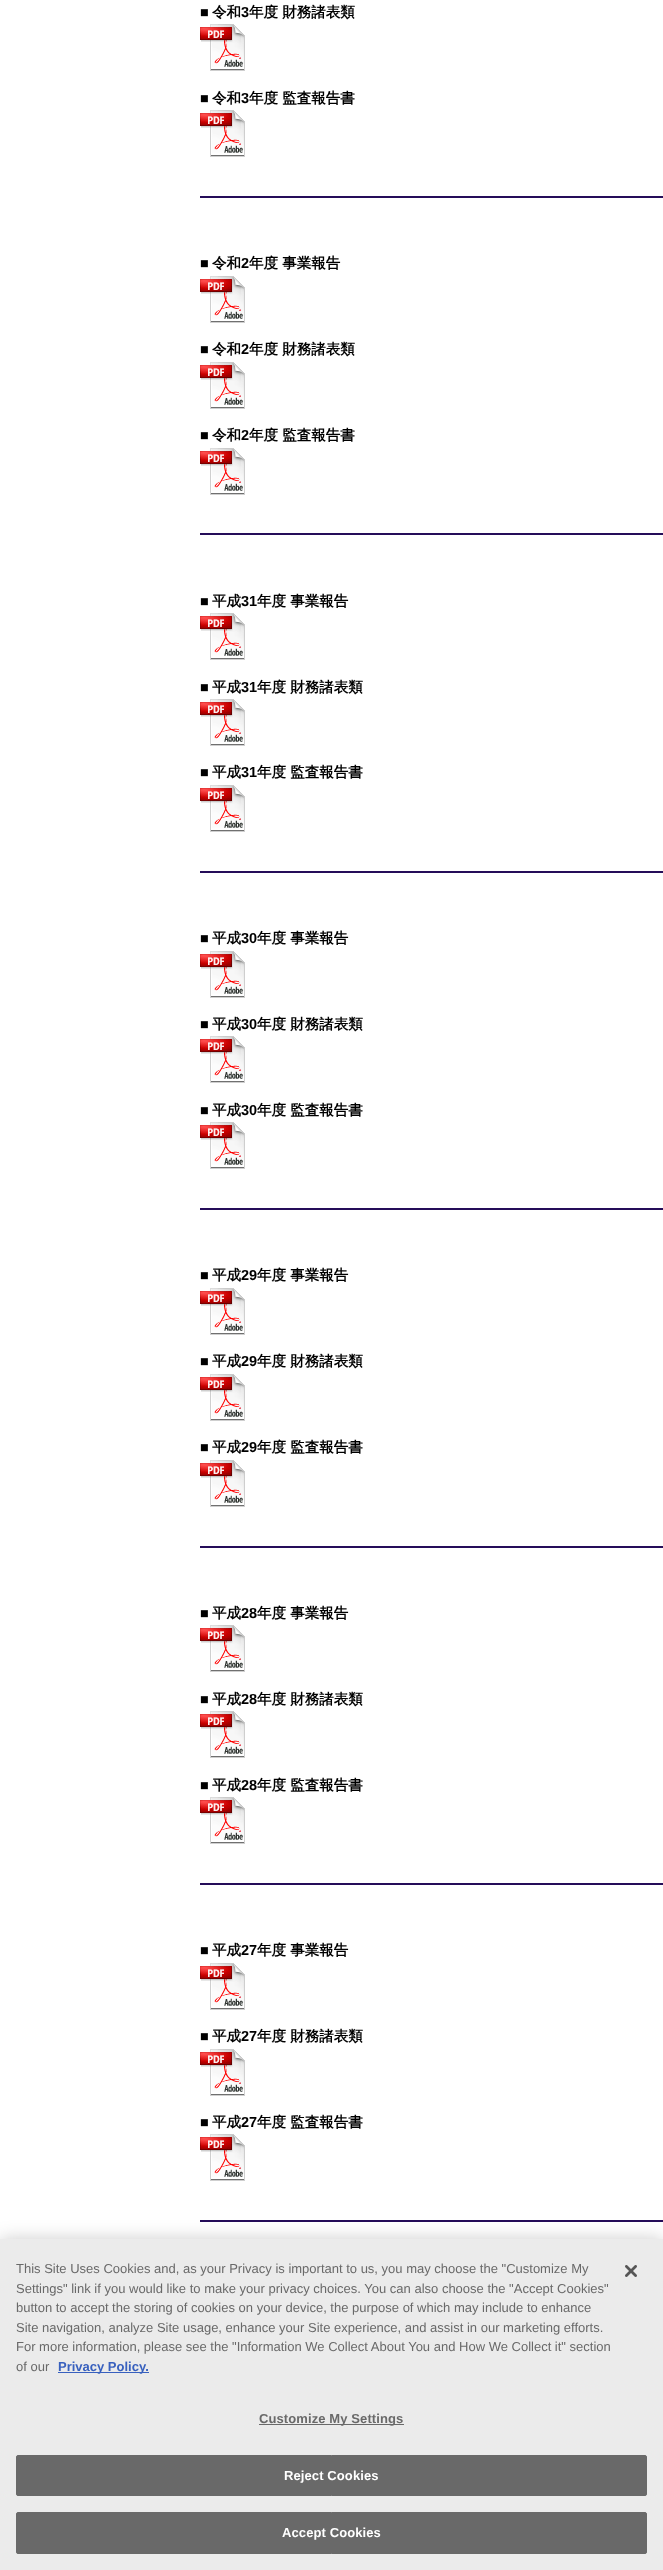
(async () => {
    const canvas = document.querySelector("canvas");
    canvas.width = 663;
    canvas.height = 2570;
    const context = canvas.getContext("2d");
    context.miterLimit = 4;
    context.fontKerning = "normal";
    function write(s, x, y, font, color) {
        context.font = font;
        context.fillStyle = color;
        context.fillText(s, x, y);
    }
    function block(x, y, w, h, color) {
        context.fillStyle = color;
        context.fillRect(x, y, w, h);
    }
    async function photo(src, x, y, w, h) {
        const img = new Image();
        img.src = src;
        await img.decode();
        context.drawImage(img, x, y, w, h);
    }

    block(0, 0, 663, 2570, "rgb(255, 255, 255)");
    write("■", 200, 17, "bold 14.5px Liberation Sans", "rgb(0, 0, 0)");
    write("令和", 212, 17, "bold 14.5px WenQuanYi Zen Hei", "rgb(0, 0, 0)");
    write("3", 241, 17, "bold 14.5px Liberation Sans", "rgb(0, 0, 0)");
    write("年度 財務諸表類", 249, 17, "bold 14.5px WenQuanYi Zen Hei", "rgb(0, 0, 0)");
    await photo("media/1.png", 200, 24, 45, 47);
    write("■", 200, 103, "bold 14.5px Liberation Sans", "rgb(0, 0, 0)");
    write("令和", 212, 103, "bold 14.5px WenQuanYi Zen Hei", "rgb(0, 0, 0)");
    write("3", 241, 103, "bold 14.5px Liberation Sans", "rgb(0, 0, 0)");
    write("年度 監査報告書", 249, 103, "bold 14.5px WenQuanYi Zen Hei", "rgb(0, 0, 0)");
    await photo("media/1.png", 200, 110, 45, 47);
    block(200, 196, 463, 2, "rgb(37, 13, 89)");
    write("■", 200, 268, "bold 14.5px Liberation Sans", "rgb(0, 0, 0)");
    write("令和", 212, 268, "bold 14.5px WenQuanYi Zen Hei", "rgb(0, 0, 0)");
    write("2", 241, 268, "bold 14.5px Liberation Sans", "rgb(0, 0, 0)");
    write("年度 事業報告", 249, 268, "bold 14.5px WenQuanYi Zen Hei", "rgb(0, 0, 0)");
    await photo("media/1.png", 200, 276, 45, 47);
    write("■", 200, 354, "bold 14.5px Liberation Sans", "rgb(0, 0, 0)");
    write("令和", 212, 354, "bold 14.5px WenQuanYi Zen Hei", "rgb(0, 0, 0)");
    write("2", 241, 354, "bold 14.5px Liberation Sans", "rgb(0, 0, 0)");
    write("年度 財務諸表類", 249, 354, "bold 14.5px WenQuanYi Zen Hei", "rgb(0, 0, 0)");
    await photo("media/1.png", 200, 362, 45, 47);
    write("■", 200, 440, "bold 14.5px Liberation Sans", "rgb(0, 0, 0)");
    write("令和", 212, 440, "bold 14.5px WenQuanYi Zen Hei", "rgb(0, 0, 0)");
    write("2", 241, 440, "bold 14.5px Liberation Sans", "rgb(0, 0, 0)");
    write("年度 監査報告書", 249, 440, "bold 14.5px WenQuanYi Zen Hei", "rgb(0, 0, 0)");
    await photo("media/1.png", 200, 448, 45, 47);
    block(200, 533, 463, 2, "rgb(37, 13, 89)");
    write("■", 200, 606, "bold 14.5px Liberation Sans", "rgb(0, 0, 0)");
    write("平成", 212, 606, "bold 14.5px WenQuanYi Zen Hei", "rgb(0, 0, 0)");
    write("31", 241, 606, "bold 14.5px Liberation Sans", "rgb(0, 0, 0)");
    write("年度 事業報告", 257, 606, "bold 14.5px WenQuanYi Zen Hei", "rgb(0, 0, 0)");
    await photo("media/1.png", 200, 613, 45, 47);
    write("■", 200, 692, "bold 14.5px Liberation Sans", "rgb(0, 0, 0)");
    write("平成", 212, 692, "bold 14.5px WenQuanYi Zen Hei", "rgb(0, 0, 0)");
    write("31", 241, 692, "bold 14.5px Liberation Sans", "rgb(0, 0, 0)");
    write("年度 財務諸表類", 257, 692, "bold 14.5px WenQuanYi Zen Hei", "rgb(0, 0, 0)");
    await photo("media/1.png", 200, 699, 45, 47);
    write("■", 200, 777, "bold 14.5px Liberation Sans", "rgb(0, 0, 0)");
    write("平成", 212, 777, "bold 14.5px WenQuanYi Zen Hei", "rgb(0, 0, 0)");
    write("31", 241, 777, "bold 14.5px Liberation Sans", "rgb(0, 0, 0)");
    write("年度 監査報告書", 257, 777, "bold 14.5px WenQuanYi Zen Hei", "rgb(0, 0, 0)");
    await photo("media/1.png", 200, 785, 45, 47);
    block(200, 871, 463, 2, "rgb(37, 13, 89)");
    write("■", 200, 943, "bold 14.5px Liberation Sans", "rgb(0, 0, 0)");
    write("平成", 212, 943, "bold 14.5px WenQuanYi Zen Hei", "rgb(0, 0, 0)");
    write("30", 241, 943, "bold 14.5px Liberation Sans", "rgb(0, 0, 0)");
    write("年度 事業報告", 257, 943, "bold 14.5px WenQuanYi Zen Hei", "rgb(0, 0, 0)");
    await photo("media/1.png", 200, 951, 45, 47);
    write("■", 200, 1029, "bold 14.5px Liberation Sans", "rgb(0, 0, 0)");
    write("平成", 212, 1029, "bold 14.5px WenQuanYi Zen Hei", "rgb(0, 0, 0)");
    write("30", 241, 1029, "bold 14.5px Liberation Sans", "rgb(0, 0, 0)");
    write("年度 財務諸表類", 257, 1029, "bold 14.5px WenQuanYi Zen Hei", "rgb(0, 0, 0)");
    await photo("media/1.png", 200, 1036, 45, 47);
    write("■", 200, 1115, "bold 14.5px Liberation Sans", "rgb(0, 0, 0)");
    write("平成", 212, 1115, "bold 14.5px WenQuanYi Zen Hei", "rgb(0, 0, 0)");
    write("30", 241, 1115, "bold 14.5px Liberation Sans", "rgb(0, 0, 0)");
    write("年度 監査報告書", 257, 1115, "bold 14.5px WenQuanYi Zen Hei", "rgb(0, 0, 0)");
    await photo("media/1.png", 200, 1122, 45, 47);
    block(200, 1208, 463, 2, "rgb(37, 13, 89)");
    write("■", 200, 1280, "bold 14.5px Liberation Sans", "rgb(0, 0, 0)");
    write("平成", 212, 1280, "bold 14.5px WenQuanYi Zen Hei", "rgb(0, 0, 0)");
    write("29", 241, 1280, "bold 14.5px Liberation Sans", "rgb(0, 0, 0)");
    write("年度 事業報告", 257, 1280, "bold 14.5px WenQuanYi Zen Hei", "rgb(0, 0, 0)");
    await photo("media/1.png", 200, 1288, 45, 47);
    write("■", 200, 1366, "bold 14.5px Liberation Sans", "rgb(0, 0, 0)");
    write("平成", 212, 1366, "bold 14.5px WenQuanYi Zen Hei", "rgb(0, 0, 0)");
    write("29", 241, 1366, "bold 14.5px Liberation Sans", "rgb(0, 0, 0)");
    write("年度 財務諸表類", 257, 1366, "bold 14.5px WenQuanYi Zen Hei", "rgb(0, 0, 0)");
    await photo("media/1.png", 200, 1374, 45, 47);
    write("■", 200, 1452, "bold 14.5px Liberation Sans", "rgb(0, 0, 0)");
    write("平成", 212, 1452, "bold 14.5px WenQuanYi Zen Hei", "rgb(0, 0, 0)");
    write("29", 241, 1452, "bold 14.5px Liberation Sans", "rgb(0, 0, 0)");
    write("年度 監査報告書", 257, 1452, "bold 14.5px WenQuanYi Zen Hei", "rgb(0, 0, 0)");
    await photo("media/1.png", 200, 1460, 45, 47);
    block(200, 1546, 463, 2, "rgb(37, 13, 89)");
    write("■", 200, 1618, "bold 14.5px Liberation Sans", "rgb(0, 0, 0)");
    write("平成", 212, 1618, "bold 14.5px WenQuanYi Zen Hei", "rgb(0, 0, 0)");
    write("28", 241, 1618, "bold 14.5px Liberation Sans", "rgb(0, 0, 0)");
    write("年度 事業報告", 257, 1618, "bold 14.5px WenQuanYi Zen Hei", "rgb(0, 0, 0)");
    await photo("media/1.png", 200, 1625, 45, 47);
    write("■", 200, 1704, "bold 14.5px Liberation Sans", "rgb(0, 0, 0)");
    write("平成", 212, 1704, "bold 14.5px WenQuanYi Zen Hei", "rgb(0, 0, 0)");
    write("28", 241, 1704, "bold 14.5px Liberation Sans", "rgb(0, 0, 0)");
    write("年度 財務諸表類", 257, 1704, "bold 14.5px WenQuanYi Zen Hei", "rgb(0, 0, 0)");
    await photo("media/1.png", 200, 1711, 45, 47);
    write("■", 200, 1790, "bold 14.5px Liberation Sans", "rgb(0, 0, 0)");
    write("平成", 212, 1790, "bold 14.5px WenQuanYi Zen Hei", "rgb(0, 0, 0)");
    write("28", 241, 1790, "bold 14.5px Liberation Sans", "rgb(0, 0, 0)");
    write("年度 監査報告書", 257, 1790, "bold 14.5px WenQuanYi Zen Hei", "rgb(0, 0, 0)");
    await photo("media/1.png", 200, 1797, 45, 47);
    block(200, 1883, 463, 2, "rgb(37, 13, 89)");
    write("■", 200, 1955, "bold 14.5px Liberation Sans", "rgb(0, 0, 0)");
    write("平成", 212, 1955, "bold 14.5px WenQuanYi Zen Hei", "rgb(0, 0, 0)");
    write("27", 241, 1955, "bold 14.5px Liberation Sans", "rgb(0, 0, 0)");
    write("年度 事業報告", 257, 1955, "bold 14.5px WenQuanYi Zen Hei", "rgb(0, 0, 0)");
    await photo("media/1.png", 200, 1963, 45, 47);
    write("■", 200, 2041, "bold 14.5px Liberation Sans", "rgb(0, 0, 0)");
    write("平成", 212, 2041, "bold 14.5px WenQuanYi Zen Hei", "rgb(0, 0, 0)");
    write("27", 241, 2041, "bold 14.5px Liberation Sans", "rgb(0, 0, 0)");
    write("年度 財務諸表類", 257, 2041, "bold 14.5px WenQuanYi Zen Hei", "rgb(0, 0, 0)");
    await photo("media/1.png", 200, 2049, 45, 47);
    write("■", 200, 2127, "bold 14.5px Liberation Sans", "rgb(0, 0, 0)");
    write("平成", 212, 2127, "bold 14.5px WenQuanYi Zen Hei", "rgb(0, 0, 0)");
    write("27", 241, 2127, "bold 14.5px Liberation Sans", "rgb(0, 0, 0)");
    write("年度 監査報告書", 257, 2127, "bold 14.5px WenQuanYi Zen Hei", "rgb(0, 0, 0)");
    await photo("media/1.png", 200, 2134, 45, 47);
    block(200, 2220, 463, 2, "rgb(37, 13, 89)");
    context.fillStyle = "rgba(0, 0, 0, 0.2)";
    context.filter = "blur(9px)";
    context.beginPath();
    context.rect(0, 2239, 663, 331);
    context.fill();
    context.filter = "none";
    block(0, 2239, 663, 331, "rgb(235, 235, 235)");
    write("This Site Uses Cookies and, as your Privacy is important to us, you may choose the \"Customize My", 16, 2273, "13px Liberation Sans", "rgb(105, 105, 105)");
    write("Settings\" link if you would like to make your privacy choices. You can also choose the \"Accept Cookies\"", 16, 2293, "13px Liberation Sans", "rgb(105, 105, 105)");
    write("button to accept the storing of cookies on your device, the purpose of which may include to enhance", 16, 2312, "13px Liberation Sans", "rgb(105, 105, 105)");
    write("Site navigation, analyze Site usage, enhance your Site experience, and assist in our marketing efforts.", 16, 2332, "13px Liberation Sans", "rgb(105, 105, 105)");
    write("For more information, please see the \"Information We Collect About You and How We Collect it\" section", 16, 2351, "13px Liberation Sans", "rgb(105, 105, 105)");
    write("of our", 16, 2371, "13px Liberation Sans", "rgb(105, 105, 105)");
    block(58, 2372, 91, 1, "rgb(56, 96, 190)");
    write("Privacy Policy.", 58, 2371, "bold 13px Liberation Sans", "rgb(56, 96, 190)");
    block(259, 2424, 145, 1, "rgb(105, 105, 105)");
    context.letterSpacing = "0.1px";
    write("Customize My Settings", 259, 2423, "bold 13px Liberation Sans", "rgb(105, 105, 105)");
    context.beginPath();
    context.roundRect(16.5, 2455.5, 630, 40, 1.5);
    context.fill();
    context.strokeStyle = "rgb(105, 105, 105)";
    context.stroke();
    write("Reject Cookies", 284, 2480, "bold 13px Liberation Sans", "rgb(255, 255, 255)");
    context.fillStyle = "rgb(105, 105, 105)";
    context.beginPath();
    context.roundRect(16.5, 2512.5, 630, 41, 1.5);
    context.fill();
    context.stroke();
    write("Accept Cookies", 282, 2537, "bold 13px Liberation Sans", "rgb(255, 255, 255)");
    await photo("media/2.png", 625, 2265, 12, 12);
})();
